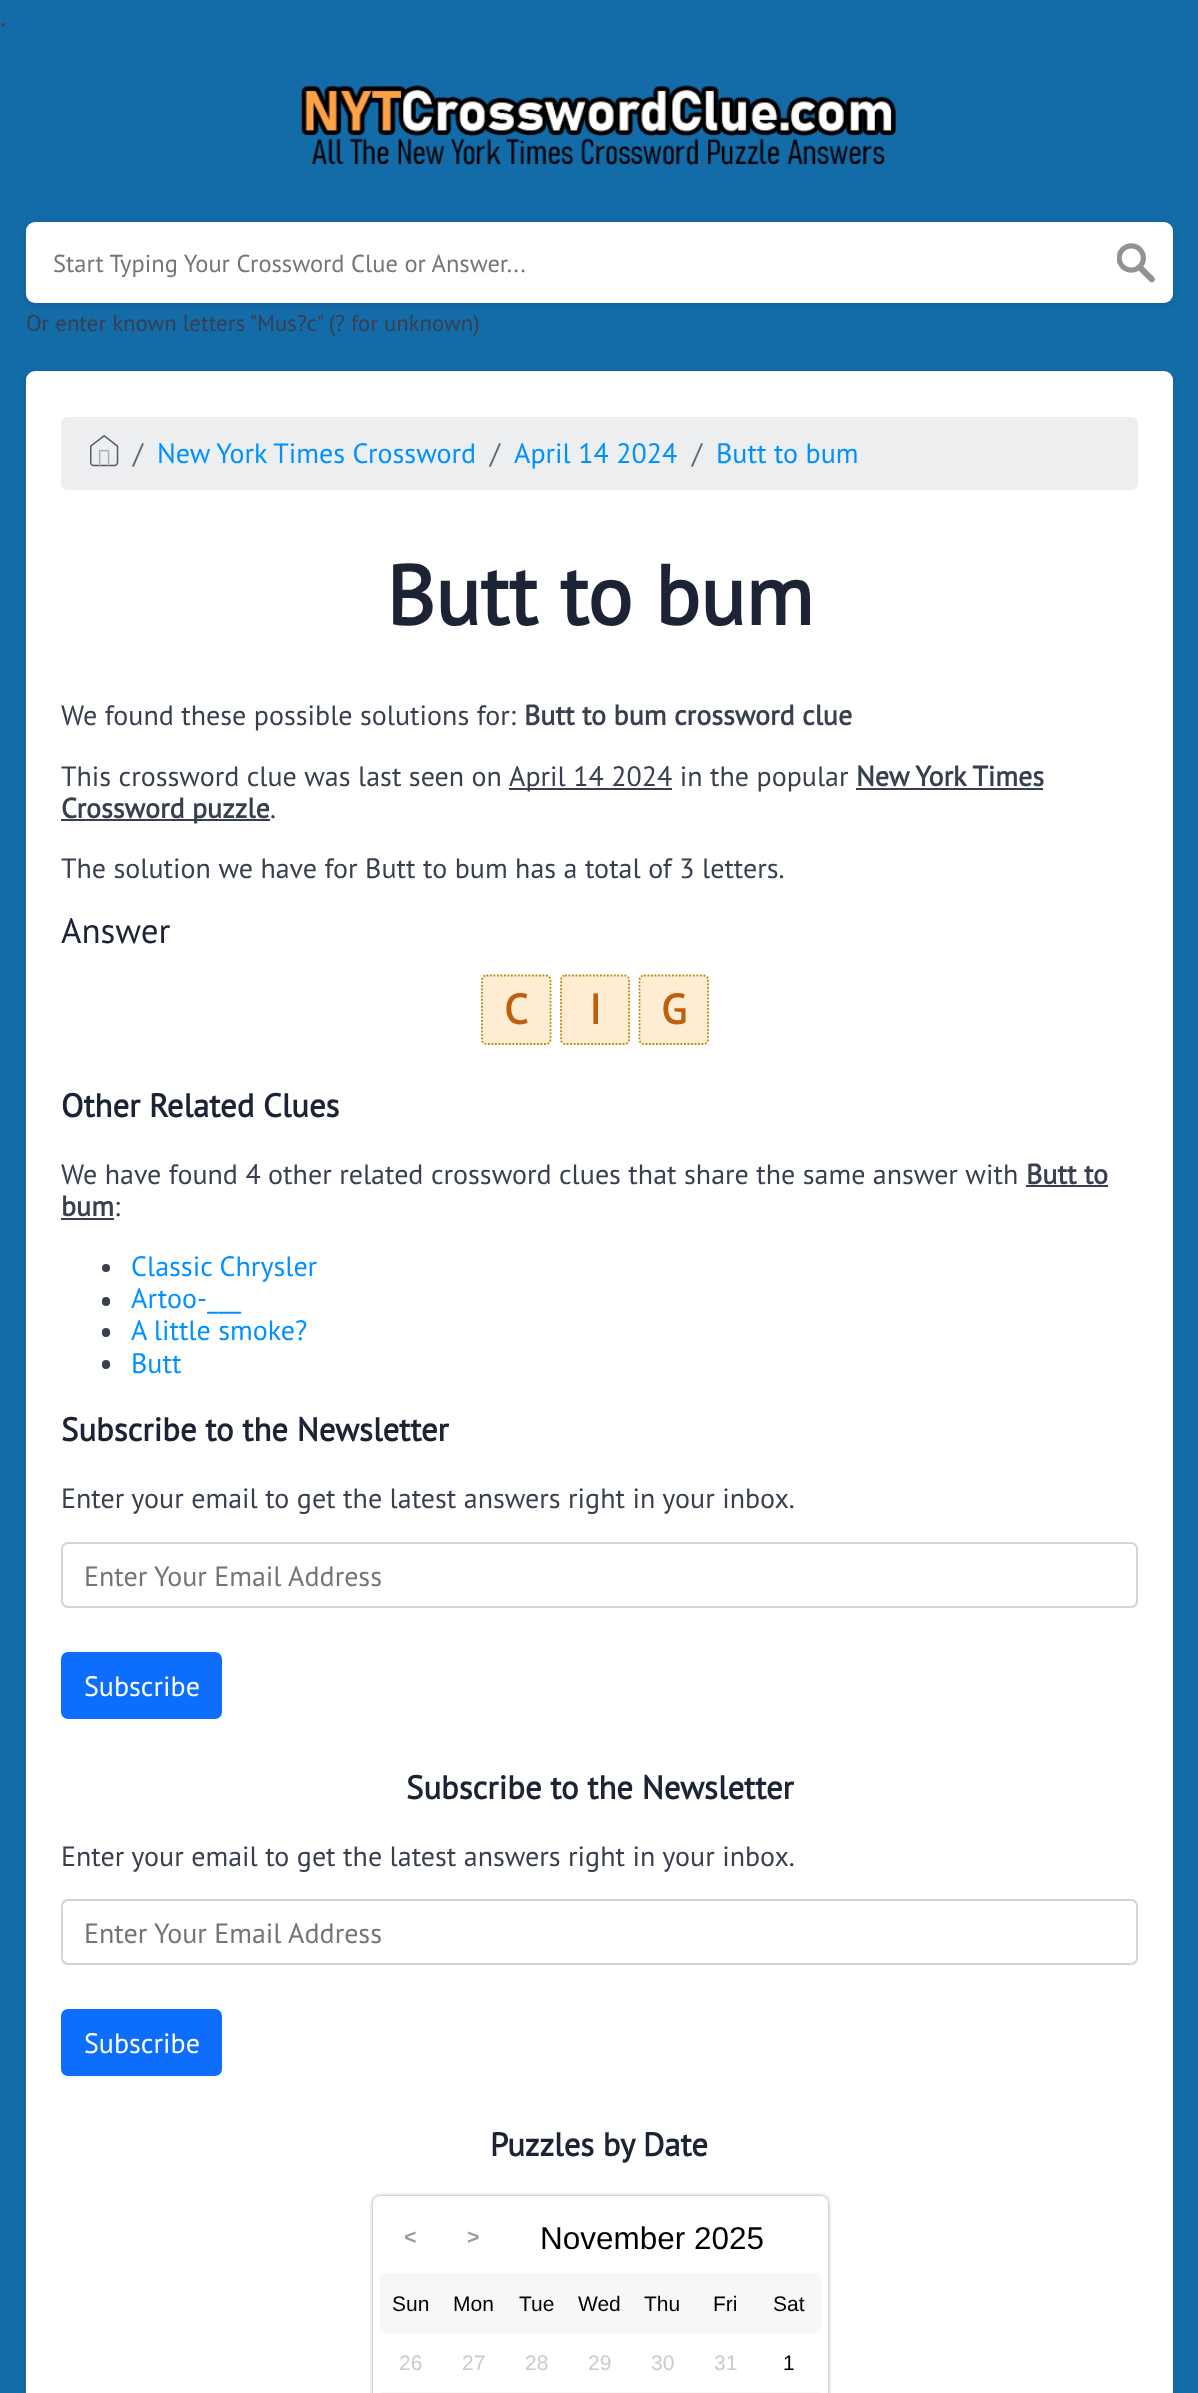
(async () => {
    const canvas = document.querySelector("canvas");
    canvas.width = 1198;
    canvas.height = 2393;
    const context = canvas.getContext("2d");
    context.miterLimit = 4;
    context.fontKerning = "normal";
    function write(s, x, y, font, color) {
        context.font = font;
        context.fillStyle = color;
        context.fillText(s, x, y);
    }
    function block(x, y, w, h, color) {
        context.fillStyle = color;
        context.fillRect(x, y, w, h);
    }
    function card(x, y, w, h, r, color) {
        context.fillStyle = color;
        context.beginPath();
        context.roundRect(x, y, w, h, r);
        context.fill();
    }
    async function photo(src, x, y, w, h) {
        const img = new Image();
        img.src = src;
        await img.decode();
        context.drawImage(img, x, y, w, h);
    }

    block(0, 0, 1198, 2393, "rgb(19, 107, 168)");
    write(".", 0, 26, "28px PT Sans", "rgb(56, 63, 78)");
    await photo("media/1.png", 300, 85, 596, 81);
    context.fillStyle = "rgba(0, 0, 0, 0.1)";
    context.filter = "blur(3.5px)";
    context.beginPath();
    context.roundRect(26, 224, 1147, 81, 9);
    context.fill();
    context.filter = "none";
    card(26, 222, 1147, 81, 9, "rgb(255, 255, 255)");
    write("Start Typing Your Crossword Clue or Answer...", 53, 272, "24.5px PT Sans", "rgb(117, 117, 117)");
    await photo("media/2.png", 1117, 243, 38, 40);
    write("Or enter known letters \"Mus?c\" (? for unknown)", 26, 331, "22.75px PT Sans", "rgb(56, 63, 78)");
    context.fillStyle = "rgba(0, 0, 0, 0.1)";
    context.filter = "blur(3.5px)";
    context.beginPath();
    context.roundRect(26, 373, 1147, 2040, 9);
    context.fill();
    context.filter = "none";
    card(26, 371, 1147, 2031, 9, "rgb(255, 255, 255)");
    card(61, 417, 1077, 73, 7, "rgb(236, 238, 239)");
    await photo("media/3.png", 90, 435, 29, 32);
    write("/", 133, 463, "28px PT Sans", "rgb(99, 108, 114)");
    write("New York Times Crossword", 157, 463, "28px PT Sans", "rgb(0, 145, 255)");
    write("/", 490, 463, "28px PT Sans", "rgb(99, 108, 114)");
    write("April 14 2024", 514, 463, "28px PT Sans", "rgb(0, 145, 255)");
    write("/", 692, 463, "28px PT Sans", "rgb(99, 108, 114)");
    write("Butt to bum", 716, 463, "28px PT Sans", "rgb(0, 145, 255)");
    write("Butt to bum", 386, 625, "bold 84px PT Sans", "rgb(28, 35, 52)");
    write("We found these possible solutions for:", 61, 725, "28px PT Sans", "rgb(56, 63, 78)");
    write("Butt to bum crossword clue", 524, 725, "bold 28px PT Sans", "rgb(56, 63, 78)");
    write("This crossword clue was last seen on", 61, 786, "28px PT Sans", "rgb(56, 63, 78)");
    block(509, 788, 163, 2, "rgb(56, 63, 78)");
    write("April 14 2024 in the popular", 509, 786, "28px PT Sans", "rgb(56, 63, 78)");
    write("New York Times", 856, 786, "bold 28px PT Sans", "rgb(56, 63, 78)");
    block(856, 788, 187, 2, "rgb(56, 63, 78)");
    block(61, 819, 209, 2, "rgb(56, 63, 78)");
    write("Crossword puzzle", 61, 818, "bold 28px PT Sans", "rgb(56, 63, 78)");
    write(".", 270, 818, "28px PT Sans", "rgb(56, 63, 78)");
    write("The solution we have for Butt to bum has a total of 3 letters.", 61, 878, "28px PT Sans", "rgb(56, 63, 78)");
    write("Answer", 61, 943, "35px PT Sans", "rgb(28, 35, 52)");
    card(481, 975, 70, 70, 5, "rgb(255, 237, 211)");
    context.beginPath();
    context.moveTo(486.5, 975.5);
    context.lineTo(546, 975.5);
    context.bezierCurveTo(548.5, 975.5, 550.5, 977.5, 550.5, 980);
    context.lineTo(550.5, 1039.5);
    context.bezierCurveTo(550.5, 1042, 548.5, 1044, 546, 1044);
    context.lineTo(486.5, 1044);
    context.bezierCurveTo(484, 1044, 482, 1042, 482, 1039.5);
    context.lineTo(482, 980);
    context.bezierCurveTo(482, 977.5, 484, 975.5, 486.5, 975.5);
    context.closePath();
    context.strokeStyle = "rgb(188, 134, 14)";
    context.lineWidth = 1.8;
    context.setLineDash([1.75, 1.75]);
    context.stroke();
    write("C", 504, 1024, "bold 42px PT Sans", "rgb(190, 95, 14)");
    card(560, 975, 70, 70, 5, "rgb(255, 237, 211)");
    context.beginPath();
    context.moveTo(565, 975.5);
    context.lineTo(625, 975.5);
    context.bezierCurveTo(627, 975.5, 629, 977.5, 629, 980);
    context.lineTo(629, 1039.5);
    context.bezierCurveTo(629, 1042, 627, 1044, 625, 1044);
    context.lineTo(565, 1044);
    context.bezierCurveTo(563, 1044, 561, 1042, 561, 1039.5);
    context.lineTo(561, 980);
    context.bezierCurveTo(561, 977.5, 563, 975.5, 565, 975.5);
    context.closePath();
    context.stroke();
    write("I", 589, 1024, "bold 42px PT Sans", "rgb(190, 95, 14)");
    card(639, 975, 70, 70, 5, "rgb(255, 237, 211)");
    context.beginPath();
    context.moveTo(644, 975.5);
    context.lineTo(703.5, 975.5);
    context.bezierCurveTo(706, 975.5, 708, 977.5, 708, 980);
    context.lineTo(708, 1039.5);
    context.bezierCurveTo(708, 1042, 706, 1044, 703.5, 1044);
    context.lineTo(644, 1044);
    context.bezierCurveTo(641.5, 1044, 639.5, 1042, 639.5, 1039.5);
    context.lineTo(639.5, 980);
    context.bezierCurveTo(639.5, 977.5, 641.5, 975.5, 644, 975.5);
    context.closePath();
    context.stroke();
    write("G", 661, 1024, "bold 42px PT Sans", "rgb(190, 95, 14)");
    write("Other Related Clues", 61, 1117, "bold 32.75px PT Sans", "rgb(28, 35, 52)");
    write("We have found 4 other related crossword clues that share the same answer with", 61, 1184, "28px PT Sans", "rgb(56, 63, 78)");
    write("Butt to", 1026, 1184, "bold 28px PT Sans", "rgb(56, 63, 78)");
    block(1026, 1185, 82, 2, "rgb(56, 63, 78)");
    write("bum", 61, 1216, "bold 28px PT Sans", "rgb(56, 63, 78)");
    block(61, 1218, 53, 2, "rgb(56, 63, 78)");
    write(":", 114, 1216, "28px PT Sans", "rgb(56, 63, 78)");
    context.beginPath();
    context.arc(106, 1268, 4, 0, Math.PI * 2);
    context.fill();
    write("Classic Chrysler", 131, 1276, "28px PT Sans", "rgb(0, 145, 255)");
    card(102, 1297, 8, 9, 4, "rgb(56, 63, 78)");
    write("Artoo-___", 131, 1308, "28px PT Sans", "rgb(0, 145, 255)");
    card(102, 1328, 8, 9, 4, "rgb(56, 63, 78)");
    write("A little smoke?", 131, 1340, "28px PT Sans", "rgb(0, 145, 255)");
    card(102, 1360, 8, 9, 4, "rgb(56, 63, 78)");
    write("Butt", 131, 1373, "28px PT Sans", "rgb(0, 145, 255)");
    write("Subscribe to the Newsletter", 61, 1441, "bold 32.75px PT Sans", "rgb(28, 35, 52)");
    write("Enter your email to get the latest answers right in your inbox.", 61, 1508, "28px PT Sans", "rgb(56, 63, 78)");
    context.beginPath();
    context.roundRect(62, 1543, 1075, 64, 6);
    context.strokeStyle = "rgb(206, 212, 218)";
    context.lineWidth = 2;
    context.setLineDash([]);
    context.stroke();
    write("Enter Your Email Address", 84, 1586, "28px PT Sans", "rgb(117, 117, 117)");
    context.fillStyle = "rgb(13, 110, 253)";
    context.beginPath();
    context.roundRect(62, 1653, 159, 65, 6);
    context.fill();
    context.strokeStyle = "rgb(13, 110, 253)";
    context.stroke();
    write("Subscribe", 84, 1696, "28px PT Sans", "rgb(255, 255, 255)");
    write("Subscribe to the Newsletter", 406, 1799, "bold 32.75px PT Sans", "rgb(28, 35, 52)");
    write("Enter your email to get the latest answers right in your inbox.", 61, 1866, "28px PT Sans", "rgb(56, 63, 78)");
    context.beginPath();
    context.roundRect(62, 1900, 1075, 64, 6);
    context.strokeStyle = "rgb(206, 212, 218)";
    context.stroke();
    write("Enter Your Email Address", 84, 1943, "28px PT Sans", "rgb(117, 117, 117)");
    context.fillStyle = "rgb(13, 110, 253)";
    context.beginPath();
    context.roundRect(62, 2010, 159, 65, 6);
    context.fill();
    context.strokeStyle = "rgb(13, 110, 253)";
    context.stroke();
    write("Subscribe", 84, 2053, "28px PT Sans", "rgb(255, 255, 255)");
    write("Puzzles by Date", 490, 2156, "bold 32.75px PT Sans", "rgb(28, 35, 52)");
    context.fillStyle = "rgba(0, 0, 0, 0.4)";
    context.filter = "blur(2px)";
    context.beginPath();
    context.roundRect(373, 2196, 455, 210, 7);
    context.fill();
    context.filter = "none";
    card(373, 2196, 455, 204, 7, "rgb(255, 255, 255)");
    write("<", 404, 2244, "bold 21px Liberation Mono", "rgb(153, 153, 153)");
    write(">", 467, 2244, "bold 21px Liberation Mono", "rgb(153, 153, 153)");
    write("November 2025", 540, 2249, "31.5px Liberation Sans", "rgb(0, 0, 0)");
    card(380, 2273, 441, 60, 5, "rgb(246, 247, 248)");
    write("Sun", 392, 2311, "21px Liberation Sans", "rgb(0, 0, 0)");
    write("Mon", 453, 2311, "21px Liberation Sans", "rgb(0, 0, 0)");
    write("Tue", 519, 2311, "21px Liberation Sans", "rgb(0, 0, 0)");
    write("Wed", 578, 2311, "21px Liberation Sans", "rgb(0, 0, 0)");
    write("Thu", 644, 2311, "21px Liberation Sans", "rgb(0, 0, 0)");
    write("Fri", 713, 2311, "21px Liberation Sans", "rgb(0, 0, 0)");
    write("Sat", 773, 2311, "21px Liberation Sans", "rgb(0, 0, 0)");
    write("26", 399, 2370, "21px Liberation Sans", "rgb(202, 202, 202)");
    write("27", 462, 2370, "21px Liberation Sans", "rgb(202, 202, 202)");
    write("28", 525, 2370, "21px Liberation Sans", "rgb(202, 202, 202)");
    write("29", 588, 2370, "21px Liberation Sans", "rgb(202, 202, 202)");
    write("30", 651, 2370, "21px Liberation Sans", "rgb(202, 202, 202)");
    write("31", 714, 2370, "21px Liberation Sans", "rgb(202, 202, 202)");
    write("1", 783, 2370, "21px Liberation Sans", "rgb(0, 0, 0)");
    card(380, 2392, 441, 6, 5, "rgb(246, 247, 248)");
})();
